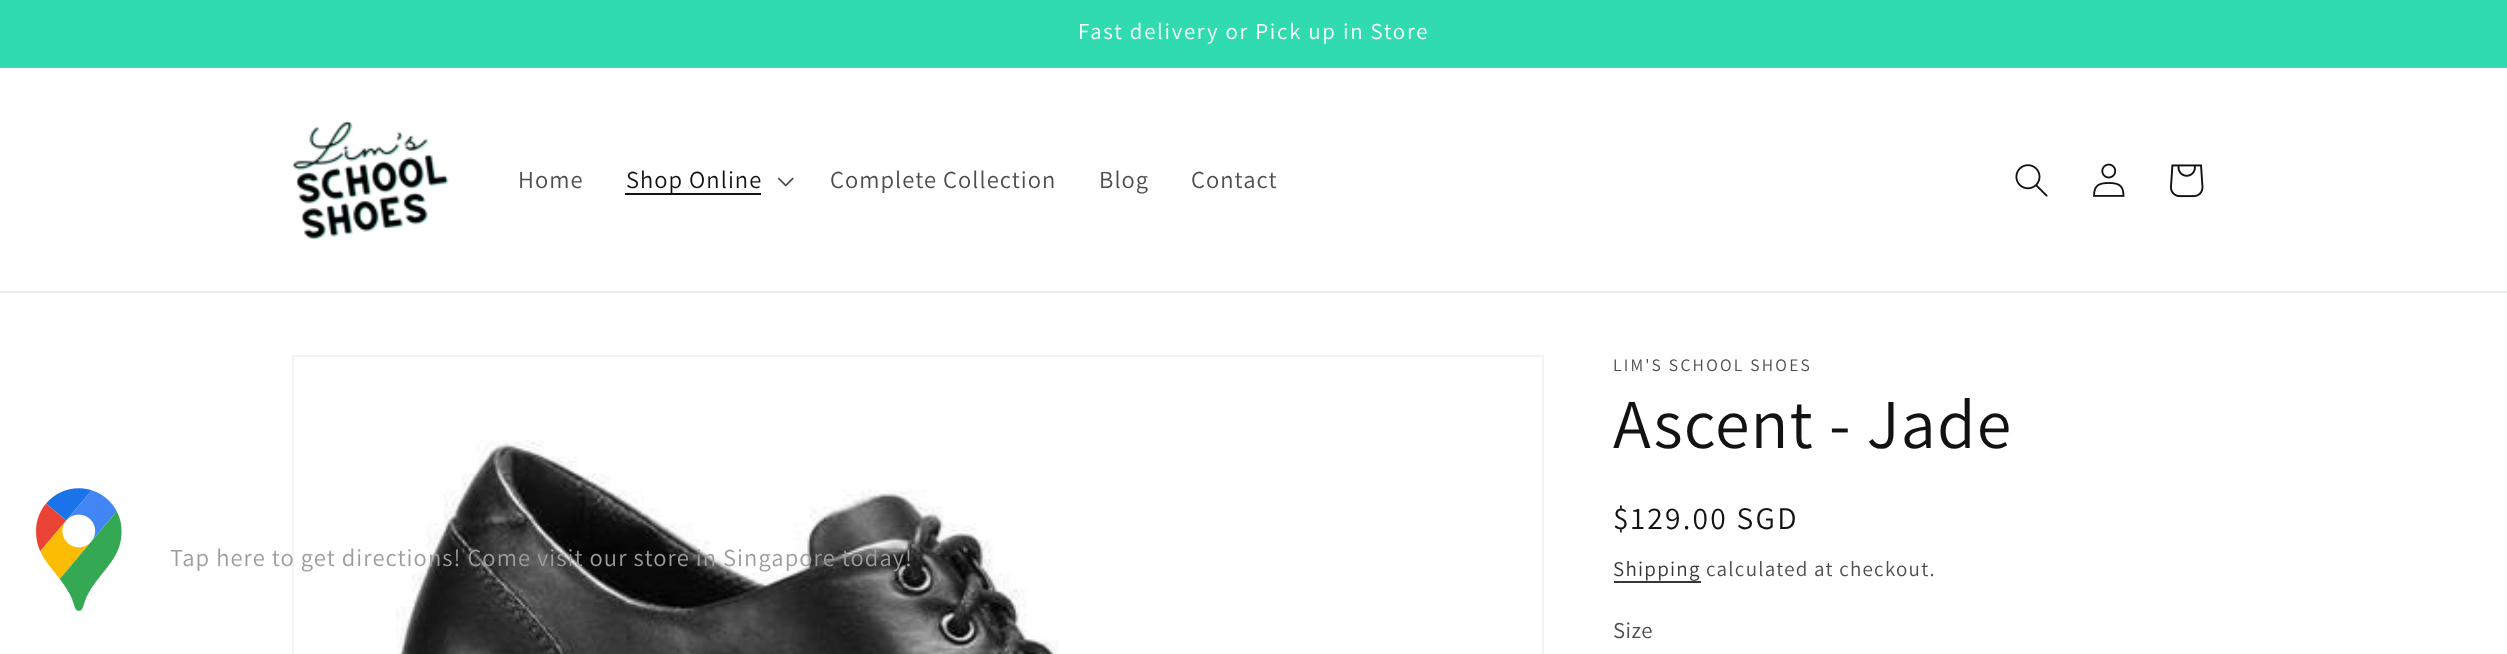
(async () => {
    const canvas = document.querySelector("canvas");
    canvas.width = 2507;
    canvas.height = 654;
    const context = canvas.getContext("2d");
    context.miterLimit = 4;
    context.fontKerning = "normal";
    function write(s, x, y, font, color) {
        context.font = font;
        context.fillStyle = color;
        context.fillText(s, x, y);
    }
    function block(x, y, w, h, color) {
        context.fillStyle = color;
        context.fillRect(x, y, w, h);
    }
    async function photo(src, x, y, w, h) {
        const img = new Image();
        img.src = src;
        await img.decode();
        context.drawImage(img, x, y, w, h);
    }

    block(0, 0, 2507, 654, "rgb(255, 255, 255)");
    block(0, 0, 2507, 67, "rgb(48, 220, 175)");
    block(0, 67, 2507, 1, "rgb(65, 223, 181)");
    context.letterSpacing = "1.75px";
    write("Fast delivery or Pick up in Store", 1078, 39, "22.75px Assistant", "rgb(255, 255, 255)");
    block(0, 291, 2507, 2, "rgb(236, 236, 236)");
    await photo("media/1.png", 292, 120, 157, 121);
    context.letterSpacing = "1.05px";
    write("Home", 518, 188, "24.5px Assistant", "rgb(77, 77, 77)");
    block(625, 193, 136, 2, "rgb(18, 18, 18)");
    write("Shop Online", 626, 188, "24.5px Assistant", "rgb(18, 18, 18)");
    await photo("media/2.png", 777, 177, 17, 10);
    write("Complete Collection", 830, 188, "24.5px Assistant", "rgb(77, 77, 77)");
    write("Blog", 1099, 188, "24.5px Assistant", "rgb(77, 77, 77)");
    write("Contact", 1191, 188, "24.5px Assistant", "rgb(77, 77, 77)");
    await photo("media/3.png", 2015, 164, 33, 33);
    await photo("media/4.png", 2093, 163, 32, 34);
    await photo("media/5.png", 2170, 164, 34, 34);
    await photo("media/6.png", 36, 488, 86, 123);
    context.strokeStyle = "rgb(243, 243, 243)";
    context.lineWidth = 2;
    context.strokeRect(293, 356, 1250, 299);
    await photo("media/7.png", 396, 440, 663, 214);
    write("Tap here to get directions! Come visit our store in Singapore today!", 170, 566, "24.5px Assistant", "rgb(157, 157, 157)");
    context.letterSpacing = "2.25px";
    write("LIM'S SCHOOL SHOES", 1613, 371, "17.5px Assistant", "rgb(77, 77, 77)");
    context.letterSpacing = "1.05px";
    write("Ascent - Jade", 1613, 448, "70px Assistant", "rgb(18, 18, 18)");
    context.letterSpacing = "2.25px";
    write("$129.00 SGD", 1613, 529, "31.5px Assistant", "rgb(18, 18, 18)");
    context.letterSpacing = "1.25px";
    write("Shipping", 1613, 576, "21px Assistant", "rgb(54, 54, 54)");
    block(1614, 581, 87, 2, "rgb(54, 54, 54)");
    write("calculated at checkout.", 1706, 576, "21px Assistant", "rgb(77, 77, 77)");
    context.letterSpacing = "0.5px";
    write("Size", 1613, 638, "22.75px Assistant", "rgb(77, 77, 77)");
})();
